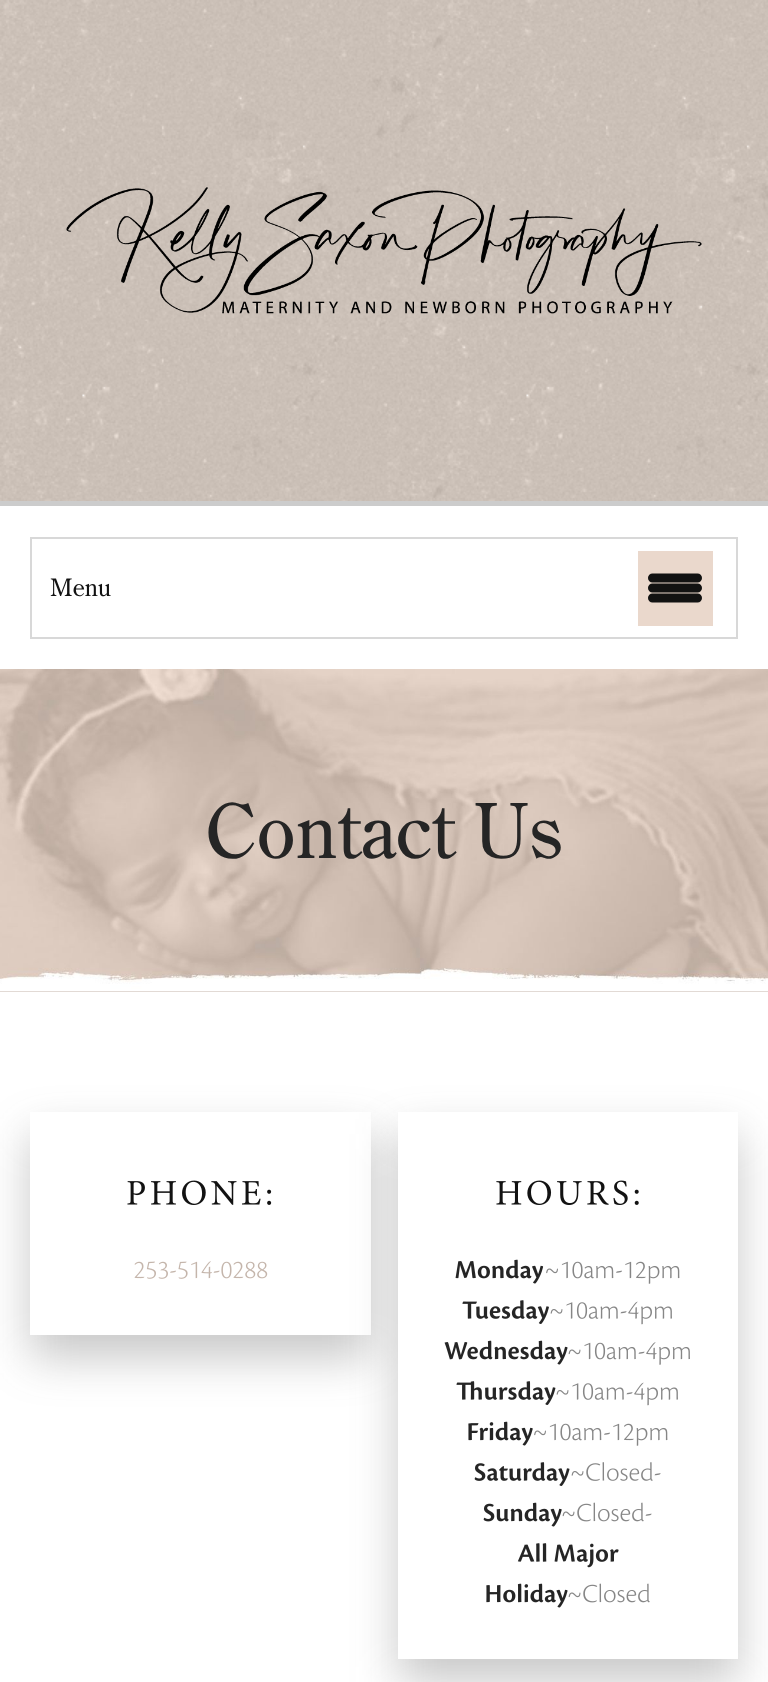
(async () => {
    const canvas = document.querySelector("canvas");
    canvas.width = 768;
    canvas.height = 1682;
    const context = canvas.getContext("2d");
    context.miterLimit = 4;
    context.fontKerning = "normal";
    function write(s, x, y, font, color) {
        context.font = font;
        context.fillStyle = color;
        context.fillText(s, x, y);
    }
    function block(x, y, w, h, color) {
        context.fillStyle = color;
        context.fillRect(x, y, w, h);
    }
    async function photo(src, x, y, w, h) {
        const img = new Image();
        img.src = src;
        await img.decode();
        context.drawImage(img, x, y, w, h);
    }

    block(0, 0, 768, 1682, "rgb(255, 255, 255)");
    await photo("media/1.png", 0, 0, 768, 501);
    block(0, 501, 768, 5, "rgb(204, 204, 204)");
    await photo("media/2.png", 66, 187, 636, 127);
    context.strokeStyle = "rgb(216, 216, 216)";
    context.lineWidth = 2;
    context.strokeRect(31, 538, 706, 100);
    write("Menu", 50, 596, "24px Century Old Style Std", "rgb(18, 18, 18)");
    block(638, 551, 75, 75, "rgb(234, 216, 204)");
    context.beginPath();
    context.moveTo(652.5, 578);
    context.lineTo(697.5, 578);
    context.moveTo(652.5, 588);
    context.lineTo(697.5, 588);
    context.moveTo(652.5, 598);
    context.lineTo(697.5, 598);
    context.strokeStyle = "rgb(18, 18, 18)";
    context.lineWidth = 9;
    context.lineCap = "round";
    context.stroke();
    block(0, 991, 768, 1, "rgb(196, 181, 171)");
    await photo("media/3.png", 0, 669, 768, 323);
    write("Contact Us", 205, 858, "75px Century Old Style Std", "rgb(37, 37, 37)");
    context.fillStyle = "rgba(74, 74, 74, 0.3)";
    context.filter = "blur(22.5px)";
    context.beginPath();
    context.rect(30, 1134, 341, 224);
    context.fill();
    context.filter = "none";
    block(30, 1112, 341, 223, "rgb(255, 255, 255)");
    await photo("media/4.png", 127, 1180, 145, 25);
    await photo("media/5.png", 134, 1261, 134, 18);
    context.fillStyle = "rgba(74, 74, 74, 0.3)";
    context.filter = "blur(22.5px)";
    context.beginPath();
    context.rect(398, 1134, 340, 548);
    context.fill();
    context.filter = "none";
    block(398, 1112, 340, 547, "rgb(255, 255, 255)");
    await photo("media/6.png", 496, 1180, 143, 25);
    await photo("media/7.png", 455, 1259, 89, 25);
    await photo("media/8.png", 546, 1261, 134, 23);
    await photo("media/9.png", 462, 1300, 87, 24);
    await photo("media/10.png", 550, 1301, 122, 24);
    await photo("media/11.png", 444, 1340, 124, 25);
    await photo("media/12.png", 568, 1342, 122, 23);
    await photo("media/13.png", 456, 1381, 100, 24);
    await photo("media/10.png", 556, 1382, 122, 24);
    await photo("media/14.png", 468, 1421, 65, 25);
    await photo("media/8.png", 534, 1423, 134, 23);
    await photo("media/15.png", 474, 1462, 96, 24);
    await photo("media/16.png", 571, 1462, 90, 19);
    await photo("media/17.png", 483, 1502, 79, 25);
    await photo("media/18.png", 562, 1502, 90, 20);
    await photo("media/19.png", 517, 1543, 102, 25);
    await photo("media/20.png", 486, 1583, 82, 25);
    await photo("media/21.png", 568, 1583, 82, 20);
})();
